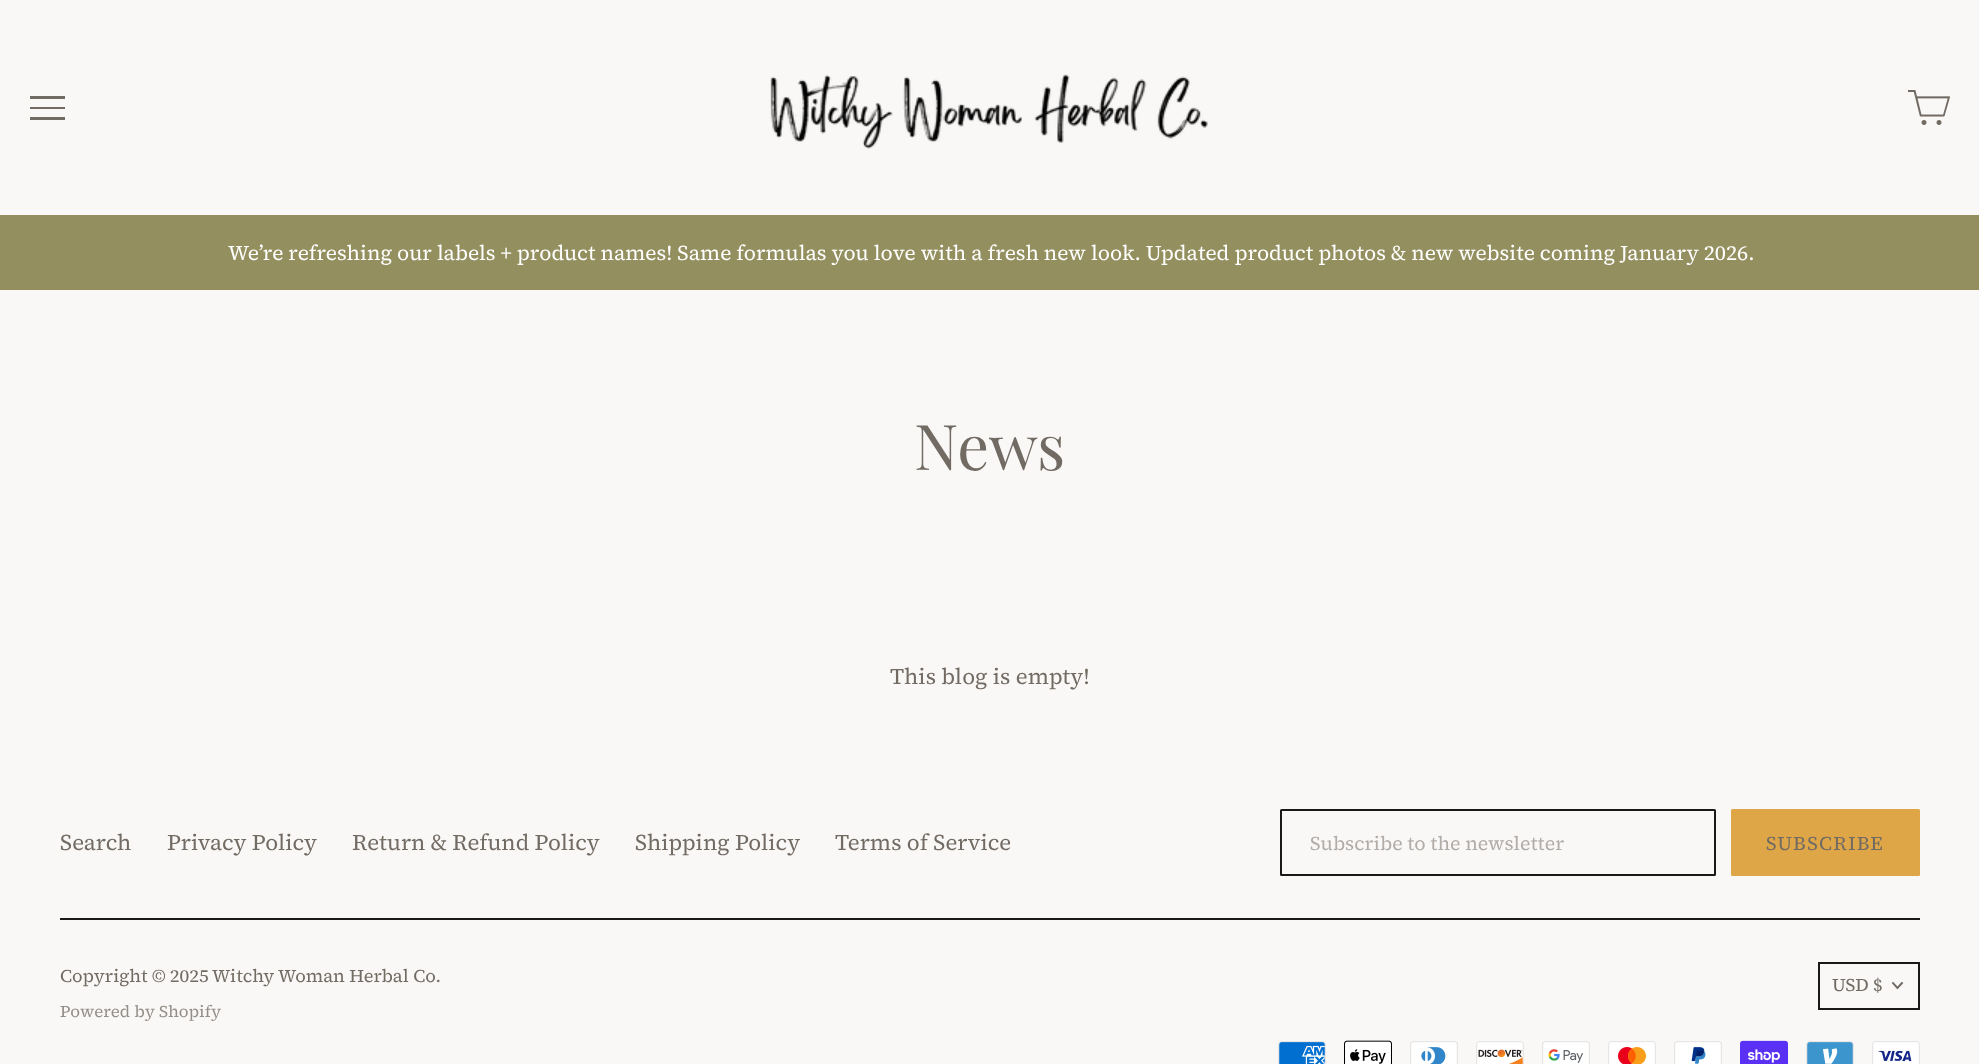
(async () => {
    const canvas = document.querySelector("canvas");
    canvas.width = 1979;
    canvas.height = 1064;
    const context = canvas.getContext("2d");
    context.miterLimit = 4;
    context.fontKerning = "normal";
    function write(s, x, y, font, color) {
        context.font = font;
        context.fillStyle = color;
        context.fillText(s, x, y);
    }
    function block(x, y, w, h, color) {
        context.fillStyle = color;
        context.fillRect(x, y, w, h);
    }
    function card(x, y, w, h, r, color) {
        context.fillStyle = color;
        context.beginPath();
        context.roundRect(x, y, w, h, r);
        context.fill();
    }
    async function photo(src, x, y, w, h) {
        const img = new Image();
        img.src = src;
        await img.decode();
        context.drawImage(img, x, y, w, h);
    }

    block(0, 0, 1979, 1064, "rgb(250, 248, 247)");
    block(30, 96, 35, 3, "rgb(114, 107, 99)");
    block(30, 107, 35, 2, "rgb(114, 107, 99)");
    block(30, 117, 35, 3, "rgb(114, 107, 99)");
    await photo("media/1.png", 770, 74, 438, 75);
    await photo("media/2.png", 1908, 90, 42, 35);
    block(0, 215, 1979, 75, "rgb(147, 143, 95)");
    write("We’re refreshing our labels + product names! Same formulas you love with a fresh new look. Updated product photos & new website coming January 2026.", 228, 260, "21px 'Source Serif 4'", "rgb(255, 255, 255)");
    write("News", 914, 470, "63px Playfair Display", "rgb(114, 107, 99)");
    write("This blog is empty!", 890, 684, "22.5px 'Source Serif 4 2'", "rgb(114, 107, 99)");
    write("Search", 60, 850, "22.5px 'Source Serif 4 2'", "rgb(114, 107, 99)");
    write("Privacy Policy", 167, 850, "22.5px 'Source Serif 4 2'", "rgb(114, 107, 99)");
    write("Return & Refund Policy", 352, 850, "22.5px 'Source Serif 4 2'", "rgb(114, 107, 99)");
    write("Shipping Policy", 635, 850, "22.5px 'Source Serif 4 2'", "rgb(114, 107, 99)");
    write("Terms of Service", 835, 850, "22.5px 'Source Serif 4 2'", "rgb(114, 107, 99)");
    context.beginPath();
    context.roundRect(1281, 810, 434, 65, 0.5);
    context.strokeStyle = "rgb(25, 25, 25)";
    context.lineWidth = 2;
    context.stroke();
    write("Subscribe to the newsletter", 1310, 850, "19.5px 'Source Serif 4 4'", "rgb(177, 172, 167)");
    card(1731, 809, 189, 67, 1.5, "rgb(222, 166, 71)");
    context.letterSpacing = "1.25px";
    write("SUBSCRIBE", 1766, 850, "19.5px 'Source Serif 4 4'", "rgb(114, 107, 99)");
    block(60, 918, 1860, 2, "rgb(25, 25, 25)");
    context.letterSpacing = "0px";
    write("Copyright © 2025", 60, 982, "18px 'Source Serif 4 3'", "rgb(114, 107, 99)");
    write("Witchy Woman Herbal Co.", 212, 982, "18px 'Source Serif 4 3'", "rgb(114, 107, 99)");
    write("Powered by Shopify", 60, 1017, "16.5px 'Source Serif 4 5'", "rgb(148, 142, 136)");
    context.strokeRect(1819, 963, 100, 46);
    write("USD $", 1832, 991, "18px 'Source Serif 4 3'", "rgb(114, 107, 99)");
    context.beginPath();
    context.moveTo(1897.5, 988);
    context.lineTo(1902, 983);
    context.moveTo(1897.5, 988);
    context.lineTo(1893, 983);
    context.strokeStyle = "rgb(114, 107, 99)";
    context.lineWidth = 1.9;
    context.lineCap = "square";
    context.stroke();
    await photo("media/3.png", 1278, 1041, 48, 23);
    await photo("media/4.png", 1344, 1040, 48, 24);
    await photo("media/5.png", 1410, 1041, 48, 23);
    await photo("media/6.png", 1476, 1041, 48, 23);
    await photo("media/7.png", 1542, 1041, 48, 23);
    await photo("media/8.png", 1608, 1041, 48, 23);
    await photo("media/9.png", 1674, 1041, 48, 23);
    await photo("media/10.png", 1740, 1040, 48, 24);
    await photo("media/11.png", 1806, 1041, 48, 23);
    await photo("media/12.png", 1872, 1041, 48, 23);
})();
